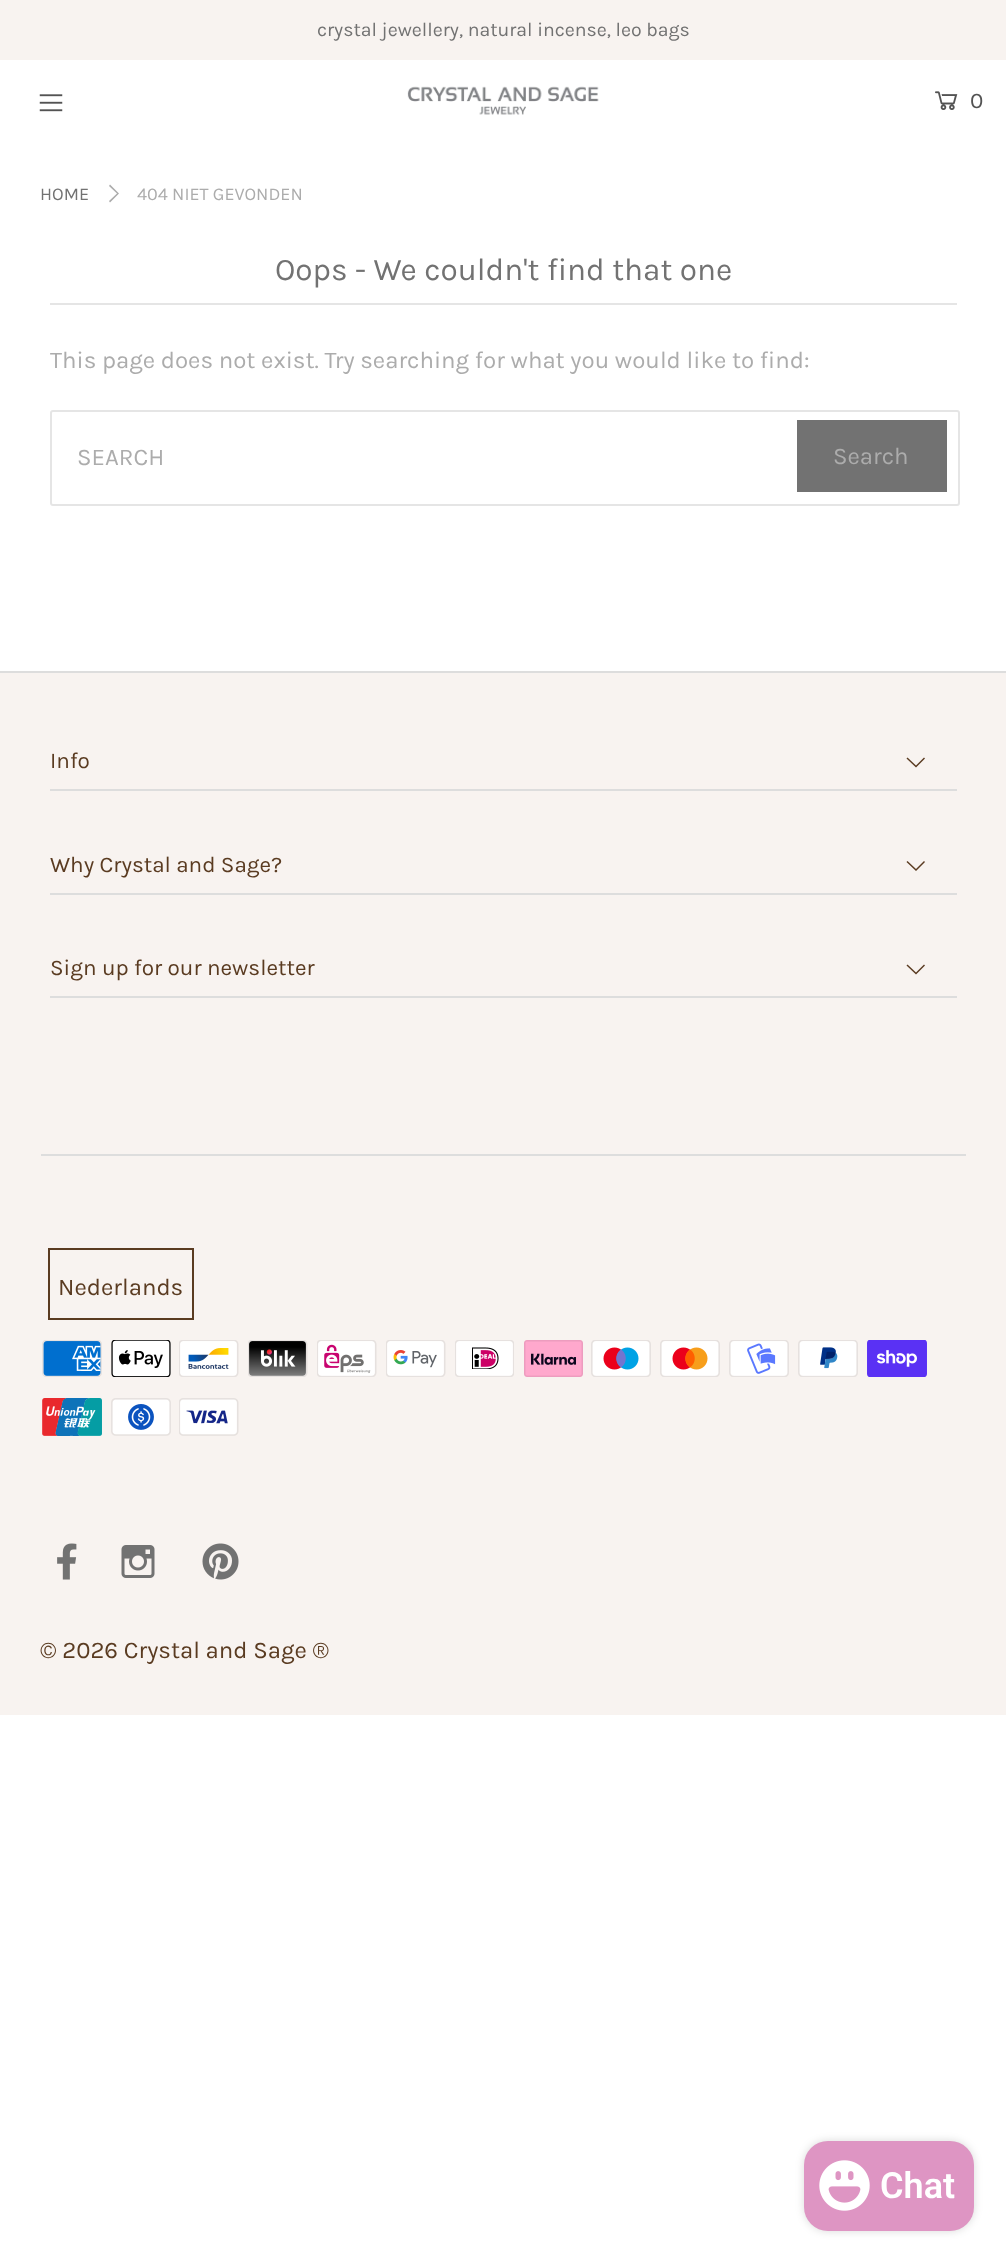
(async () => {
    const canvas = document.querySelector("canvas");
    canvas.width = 1006;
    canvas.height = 2261;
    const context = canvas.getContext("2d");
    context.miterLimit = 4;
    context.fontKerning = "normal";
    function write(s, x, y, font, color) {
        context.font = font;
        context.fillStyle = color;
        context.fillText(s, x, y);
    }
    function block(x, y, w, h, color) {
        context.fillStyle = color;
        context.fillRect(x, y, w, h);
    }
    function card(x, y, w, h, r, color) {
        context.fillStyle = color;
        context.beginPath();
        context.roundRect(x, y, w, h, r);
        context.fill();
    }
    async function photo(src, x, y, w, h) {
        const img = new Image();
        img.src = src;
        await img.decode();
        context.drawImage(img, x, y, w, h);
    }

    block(0, 0, 1006, 2261, "rgb(255, 255, 255)");
    block(0, 0, 1006, 60, "rgb(248, 243, 240)");
    write("crystal jewellery, natural incense, leo bags", 317, 36, "19.5px Karla", "rgb(114, 114, 114)");
    await photo("media/1.png", 39, 94, 24, 18);
    await photo("media/2.png", 407, 86, 192, 29);
    await photo("media/3.png", 935, 91, 23, 19);
    write("0", 970, 108, "22.5px Karla", "rgb(83, 83, 83)");
    write("HOME", 40, 200, "18px Karla", "rgb(114, 114, 114)");
    context.fillStyle = "rgb(172, 172, 172)";
    context.beginPath();
    context.moveTo(110, 184.5);
    context.lineTo(119, 193.5);
    context.lineTo(110, 202.5);
    context.lineTo(109, 201);
    context.lineTo(117, 193.5);
    context.lineTo(109, 186);
    context.closePath();
    context.fill();
    write("404 NIET GEVONDEN", 137, 200, "18px Karla", "rgb(172, 172, 172)");
    block(50, 303, 907, 2, "rgb(229, 229, 229)");
    write("Oops - We couldn't find that one", 275, 280, "31.5px Karla", "rgb(114, 114, 114)");
    write("This page does not exist. Try searching for what you would like to find:", 50, 368, "24px Karla", "rgb(172, 172, 172)");
    context.beginPath();
    context.roundRect(51, 411, 908, 94, 2);
    context.strokeStyle = "rgb(229, 229, 229)";
    context.lineWidth = 2;
    context.stroke();
    write("SEARCH", 77, 465, "24px Karla", "rgb(172, 172, 172)");
    block(797, 420, 150, 72, "rgb(114, 114, 114)");
    write("Search", 833, 464, "24px Karla", "rgb(172, 172, 172)");
    block(0, 673, 1006, 1042, "rgb(248, 243, 240)");
    block(0, 671, 1006, 2, "rgb(221, 221, 221)");
    block(50, 789, 907, 2, "rgb(221, 221, 221)");
    write("Info", 50, 768, "22.5px Karla", "rgb(90, 59, 33)");
    context.beginPath();
    context.moveTo(907.5, 757.5);
    context.lineTo(916, 765.5);
    context.lineTo(924, 757.5);
    context.lineTo(925, 758.5);
    context.lineTo(916, 767.5);
    context.lineTo(906.5, 758.5);
    context.closePath();
    context.fill();
    block(50, 893, 907, 2, "rgb(221, 221, 221)");
    write("Why Crystal and Sage?", 50, 872, "22.5px Karla", "rgb(90, 59, 33)");
    context.beginPath();
    context.moveTo(907.5, 861);
    context.lineTo(916, 869);
    context.lineTo(924, 861);
    context.lineTo(925, 862);
    context.lineTo(916, 871);
    context.lineTo(906.5, 862);
    context.closePath();
    context.fill();
    block(50, 996, 907, 2, "rgb(221, 221, 221)");
    write("Sign up for our newsletter", 50, 975, "22.5px Karla", "rgb(90, 59, 33)");
    context.beginPath();
    context.moveTo(907.5, 964.5);
    context.lineTo(916, 972.5);
    context.lineTo(924, 964.5);
    context.lineTo(925, 965.5);
    context.lineTo(916, 974.5);
    context.lineTo(906.5, 965.5);
    context.closePath();
    context.fill();
    block(41, 1154, 925, 2, "rgb(221, 221, 221)");
    context.strokeStyle = "rgb(90, 59, 33)";
    context.strokeRect(49, 1249, 144, 70);
    write("Nederlands", 58, 1295, "24px Karla", "rgb(90, 59, 33)");
    await photo("media/4.png", 42, 1340, 60, 37);
    await photo("media/5.png", 111, 1340, 60, 37);
    await photo("media/6.png", 179, 1340, 60, 37);
    await photo("media/7.png", 248, 1340, 60, 37);
    await photo("media/8.png", 317, 1340, 60, 37);
    await photo("media/9.png", 386, 1340, 60, 37);
    await photo("media/10.png", 455, 1340, 59, 37);
    await photo("media/11.png", 524, 1340, 59, 37);
    await photo("media/12.png", 591, 1340, 60, 37);
    await photo("media/13.png", 660, 1340, 60, 37);
    await photo("media/14.png", 729, 1340, 60, 37);
    await photo("media/15.png", 798, 1340, 60, 37);
    await photo("media/16.png", 867, 1340, 60, 37);
    await photo("media/17.png", 42, 1398, 60, 38);
    await photo("media/18.png", 111, 1398, 60, 38);
    await photo("media/19.png", 179, 1398, 60, 38);
    await photo("media/20.png", 57, 1543, 20, 37);
    await photo("media/21.png", 121, 1545, 34, 33);
    await photo("media/22.png", 202, 1543, 37, 37);
    write("© 2026 Crystal and Sage ®", 40, 1658, "24px Karla", "rgb(90, 59, 33)");
    context.fillStyle = "rgba(0, 0, 0, 0.15)";
    context.filter = "blur(4px)";
    context.beginPath();
    context.roundRect(804, 2141, 170, 90, 24);
    context.fill();
    context.filter = "none";
    card(804, 2141, 170, 90, 24, "rgb(222, 149, 195)");
    await photo("media/23.png", 819, 2160, 51, 51);
    write("Chat", 880, 2198, "600 36px Roboto", "rgb(255, 255, 255)");
})();
